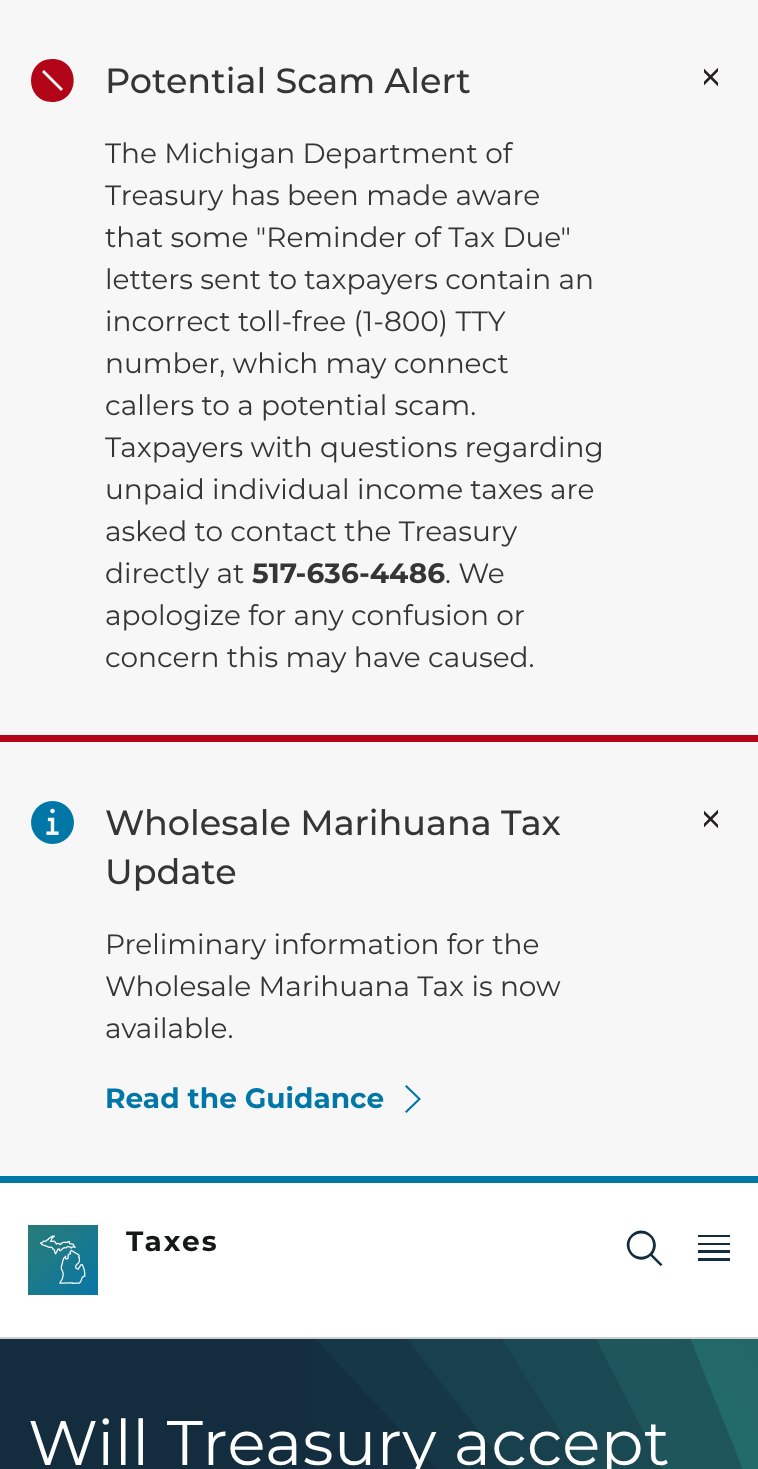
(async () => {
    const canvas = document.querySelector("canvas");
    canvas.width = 758;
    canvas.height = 1469;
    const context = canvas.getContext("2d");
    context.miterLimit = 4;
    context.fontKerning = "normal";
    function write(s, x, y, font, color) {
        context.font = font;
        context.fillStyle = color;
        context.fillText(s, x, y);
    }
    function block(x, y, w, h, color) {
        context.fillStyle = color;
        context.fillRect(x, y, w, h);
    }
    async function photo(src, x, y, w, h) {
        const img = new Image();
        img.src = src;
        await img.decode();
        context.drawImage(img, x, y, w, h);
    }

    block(0, 0, 758, 1469, "rgb(20, 45, 62)");
    block(0, 1183, 758, 154, "rgb(255, 255, 255)");
    block(0, 0, 758, 735, "rgb(247, 247, 247)");
    block(0, 735, 758, 7, "rgb(179, 5, 24)");
    context.beginPath();
    context.moveTo(52, 59);
    context.bezierCurveTo(24, 59, 24, 102, 52, 102);
    context.bezierCurveTo(81, 102, 81, 59, 52, 59);
    context.closePath();
    context.moveTo(61, 91);
    context.lineTo(42, 72);
    context.lineTo(44, 70);
    context.lineTo(63, 89);
    context.closePath();
    context.fill();
    write("Potential Scam Alert", 105, 93, "500 35px Montserrat", "rgb(53, 53, 53)");
    write("The Michigan Department of", 105, 163, "28px Montserrat", "rgb(53, 53, 53)");
    write("Treasury has been made aware", 105, 205, "28px Montserrat", "rgb(53, 53, 53)");
    write("that some \"Reminder of Tax Due\"", 105, 247, "28px Montserrat", "rgb(53, 53, 53)");
    write("letters sent to taxpayers contain an", 105, 289, "28px Montserrat", "rgb(53, 53, 53)");
    write("incorrect toll-free (1-800) TTY", 105, 331, "28px Montserrat", "rgb(53, 53, 53)");
    write("number, which may connect", 105, 373, "28px Montserrat", "rgb(53, 53, 53)");
    write("callers to a potential scam.", 105, 415, "28px Montserrat", "rgb(53, 53, 53)");
    write("Taxpayers with questions regarding", 105, 457, "28px Montserrat", "rgb(53, 53, 53)");
    write("unpaid individual income taxes are", 105, 499, "28px Montserrat", "rgb(53, 53, 53)");
    write("asked to contact the Treasury", 105, 541, "28px Montserrat", "rgb(53, 53, 53)");
    write("directly at", 105, 583, "28px Montserrat", "rgb(53, 53, 53)");
    write("517-636-4486", 252, 583, "bold 28px Montserrat", "rgb(53, 53, 53)");
    write(". We", 445, 583, "28px Montserrat", "rgb(53, 53, 53)");
    write("apologize for any confusion or", 105, 625, "28px Montserrat", "rgb(53, 53, 53)");
    write("concern this may have caused.", 105, 667, "28px Montserrat", "rgb(53, 53, 53)");
    await photo("media/1.png", 704, 67, 14, 20);
    block(0, 742, 758, 434, "rgb(247, 247, 247)");
    block(0, 1176, 758, 7, "rgb(0, 119, 167)");
    await photo("media/2.png", 31, 801, 43, 43);
    write("Wholesale Marihuana Tax", 105, 835, "500 35px Montserrat", "rgb(53, 53, 53)");
    write("Update", 105, 884, "500 35px Montserrat", "rgb(53, 53, 53)");
    write("Preliminary information for the", 105, 954, "28px Montserrat", "rgb(53, 53, 53)");
    write("Wholesale Marihuana Tax is now", 105, 996, "28px Montserrat", "rgb(53, 53, 53)");
    write("available.", 105, 1038, "28px Montserrat", "rgb(53, 53, 53)");
    write("Read the Guidance", 105, 1108, "bold 28px Montserrat", "rgb(0, 119, 167)");
    context.beginPath();
    context.moveTo(418, 1099);
    context.lineTo(405, 1086.5);
    context.lineTo(406.5, 1085);
    context.lineTo(421, 1099);
    context.lineTo(406.5, 1113);
    context.lineTo(405, 1111.5);
    context.closePath();
    context.fill();
    await photo("media/1.png", 704, 809, 14, 20);
    block(0, 1337, 758, 2, "rgb(208, 208, 208)");
    await photo("media/3.png", 28, 1225, 70, 70);
    context.letterSpacing = "2px";
    write("Taxes", 126, 1251, "bold 28px Montserrat", "rgb(22, 24, 24)");
    context.fillStyle = "rgb(20, 45, 62)";
    context.beginPath();
    context.moveTo(662.5, 1264.5);
    context.lineTo(652.5, 1254.5);
    context.bezierCurveTo(664, 1240.5, 644, 1222, 631, 1235);
    context.bezierCurveTo(618.5, 1247.5, 636.5, 1268, 650.5, 1256);
    context.lineTo(660.5, 1266);
    context.closePath();
    context.moveTo(629.5, 1245);
    context.bezierCurveTo(629.5, 1229.5, 653, 1229.5, 653, 1245);
    context.bezierCurveTo(653, 1260.5, 629.5, 1260.5, 629.5, 1245);
    context.closePath();
    context.fill();
    block(698, 1258, 32, 3, "rgb(20, 45, 62)");
    block(698, 1243, 32, 2, "rgb(20, 45, 62)");
    block(698, 1250, 32, 3, "rgb(20, 45, 62)");
    block(698, 1235, 32, 2, "rgb(20, 45, 62)");
    await photo("media/4.png", 312, 1339, 446, 130);
    context.letterSpacing = "0.5px";
    write("Will Treasury accept", 28, 1465, "63px Montserrat", "rgb(255, 255, 255)");
})();
